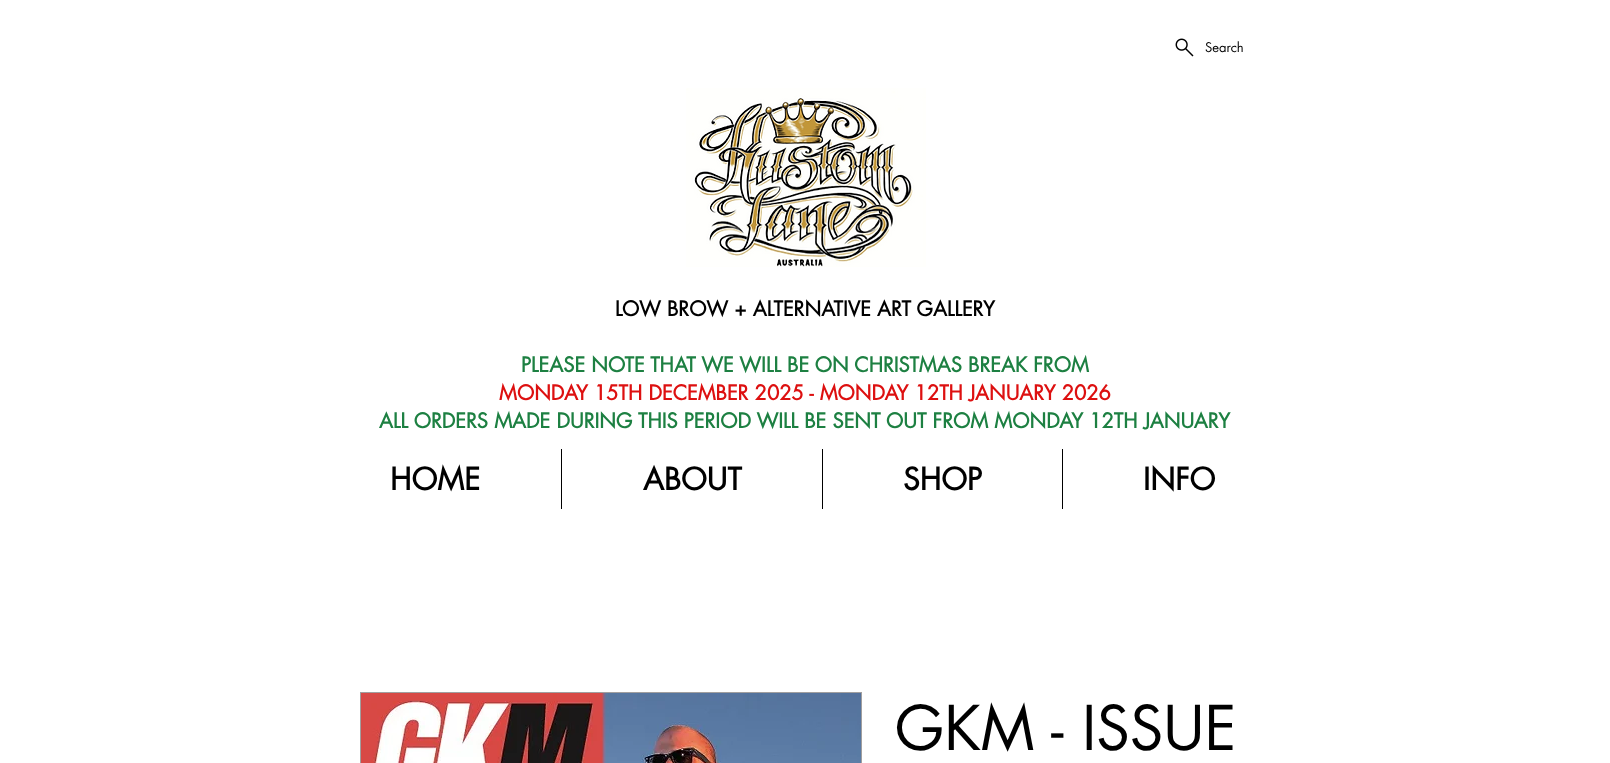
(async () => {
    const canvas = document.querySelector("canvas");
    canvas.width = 1610;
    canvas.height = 763;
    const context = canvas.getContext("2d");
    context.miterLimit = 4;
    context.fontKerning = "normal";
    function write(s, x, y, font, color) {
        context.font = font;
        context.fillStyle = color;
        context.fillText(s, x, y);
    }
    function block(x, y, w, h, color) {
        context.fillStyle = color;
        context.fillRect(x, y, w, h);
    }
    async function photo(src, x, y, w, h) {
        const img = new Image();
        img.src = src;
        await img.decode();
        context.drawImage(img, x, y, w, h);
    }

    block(0, 0, 1610, 763, "rgb(255, 255, 255)");
    await photo("media/1.png", 1175, 38, 19, 19);
    write("Search", 1205, 52, "13px futura", "rgb(0, 0, 0)");
    await photo("media/2.png", 686, 88, 240, 179);
    write("LOW BROW + ALTERNATIVE ART GALLERY", 615, 316, "bold 20px futura", "rgb(0, 0, 0)");
    write("PLEASE NOTE THAT WE WILL BE ON CHRISTMAS BREAK FROM", 521, 372, "bold 20px futura", "rgb(29, 128, 66)");
    write("MONDAY 15TH DECEMBER 2025 - MONDAY 12TH JANUARY 2026", 499, 400, "bold 20px futura", "rgb(221, 16, 16)");
    write("ALL ORDERS MADE DURING THIS PERIOD WILL BE SENT OUT FROM MONDAY 12TH JANUARY", 379, 428, "bold 20px futura", "rgb(29, 128, 66)");
    write("HOME", 390, 490, "bold 30px futura", "rgb(0, 0, 0)");
    block(561, 449, 1, 60, "rgb(0, 0, 0)");
    write("ABOUT", 643, 490, "bold 30px futura", "rgb(0, 0, 0)");
    block(822, 449, 1, 60, "rgb(0, 0, 0)");
    write("SHOP", 903, 490, "bold 30px futura", "rgb(0, 0, 0)");
    block(1062, 449, 1, 60, "rgb(0, 0, 0)");
    write("INFO", 1143, 490, "bold 30px futura", "rgb(0, 0, 0)");
    context.strokeStyle = "rgb(161, 159, 159)";
    context.strokeRect(360.5, 692.5, 501, 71);
    await photo("media/3.png", 361, 693, 500, 70);
    write("GKM - ISSUE", 895, 750, "60px futura", "rgb(0, 0, 0)");
})();
